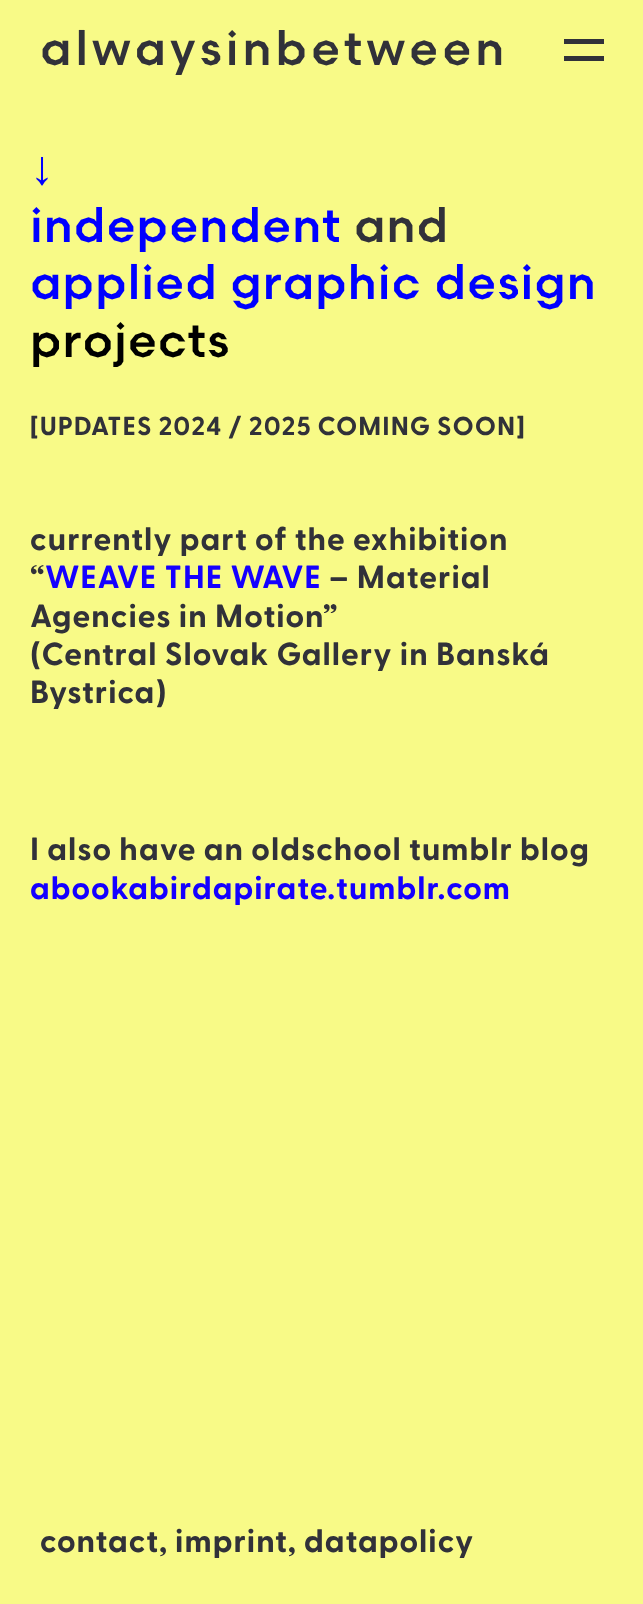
(async () => {
    const canvas = document.querySelector("canvas");
    canvas.width = 643;
    canvas.height = 1604;
    const context = canvas.getContext("2d");
    context.miterLimit = 4;
    context.fontKerning = "normal";
    function write(s, x, y, font, color) {
        context.font = font;
        context.fillStyle = color;
        context.fillText(s, x, y);
    }
    function block(x, y, w, h, color) {
        context.fillStyle = color;
        context.fillRect(x, y, w, h);
    }

    block(0, 0, 643, 1604, "rgb(248, 250, 135)");
    context.letterSpacing = "4px";
    write("alwaysinbetween", 40, 65, "bold 48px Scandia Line", "rgb(49, 49, 57)");
    block(564, 56, 40, 5, "rgb(49, 49, 57)");
    block(564, 39, 40, 5, "rgb(49, 49, 57)");
    context.letterSpacing = "1px";
    write("↓", 30, 184, "bold 48px Liberation Sans", "rgb(0, 0, 255)");
    write("independent", 30, 242, "bold 48px Scandia Line", "rgb(0, 0, 255)");
    write("and", 354, 242, "bold 48px Scandia Line", "rgb(49, 49, 57)");
    write("applied graphic design", 30, 299, "bold 48px Scandia Line", "rgb(0, 0, 255)");
    write("projects", 30, 357, "bold 48px Scandia Line", "rgb(0, 0, 0)");
    write("[UPDATES 2024 / 2025 COMING SOON]", 30, 435, "bold 26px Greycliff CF", "rgb(49, 49, 57)");
    write("currently part of the exhibition", 30, 550, "bold 32px Greycliff CF", "rgb(49, 49, 57)");
    write("“", 30, 588, "bold 32px Greycliff CF", "rgb(49, 49, 57)");
    write("WEAVE THE WAVE", 45, 588, "bold 32px Greycliff CF", "rgb(21, 0, 255)");
    write("– Material", 329, 588, "bold 32px Greycliff CF", "rgb(49, 49, 57)");
    write("Agencies in Motion”", 30, 627, "bold 32px Greycliff CF", "rgb(49, 49, 57)");
    write("(Central Slovak Gallery in Banská", 30, 665, "bold 32px Greycliff CF", "rgb(49, 49, 57)");
    write("Bystrica)", 30, 703, "bold 32px Greycliff CF", "rgb(49, 49, 57)");
    write("I also have an oldschool tumblr blog", 30, 860, "bold 32px Greycliff CF", "rgb(49, 49, 57)");
    write("abookabirdapirate.tumblr.com", 30, 899, "bold 32px Greycliff CF", "rgb(21, 0, 255)");
    write("contact, imprint, datapolicy", 40, 1552, "bold 32px Greycliff CF", "rgb(49, 49, 57)");
})();
